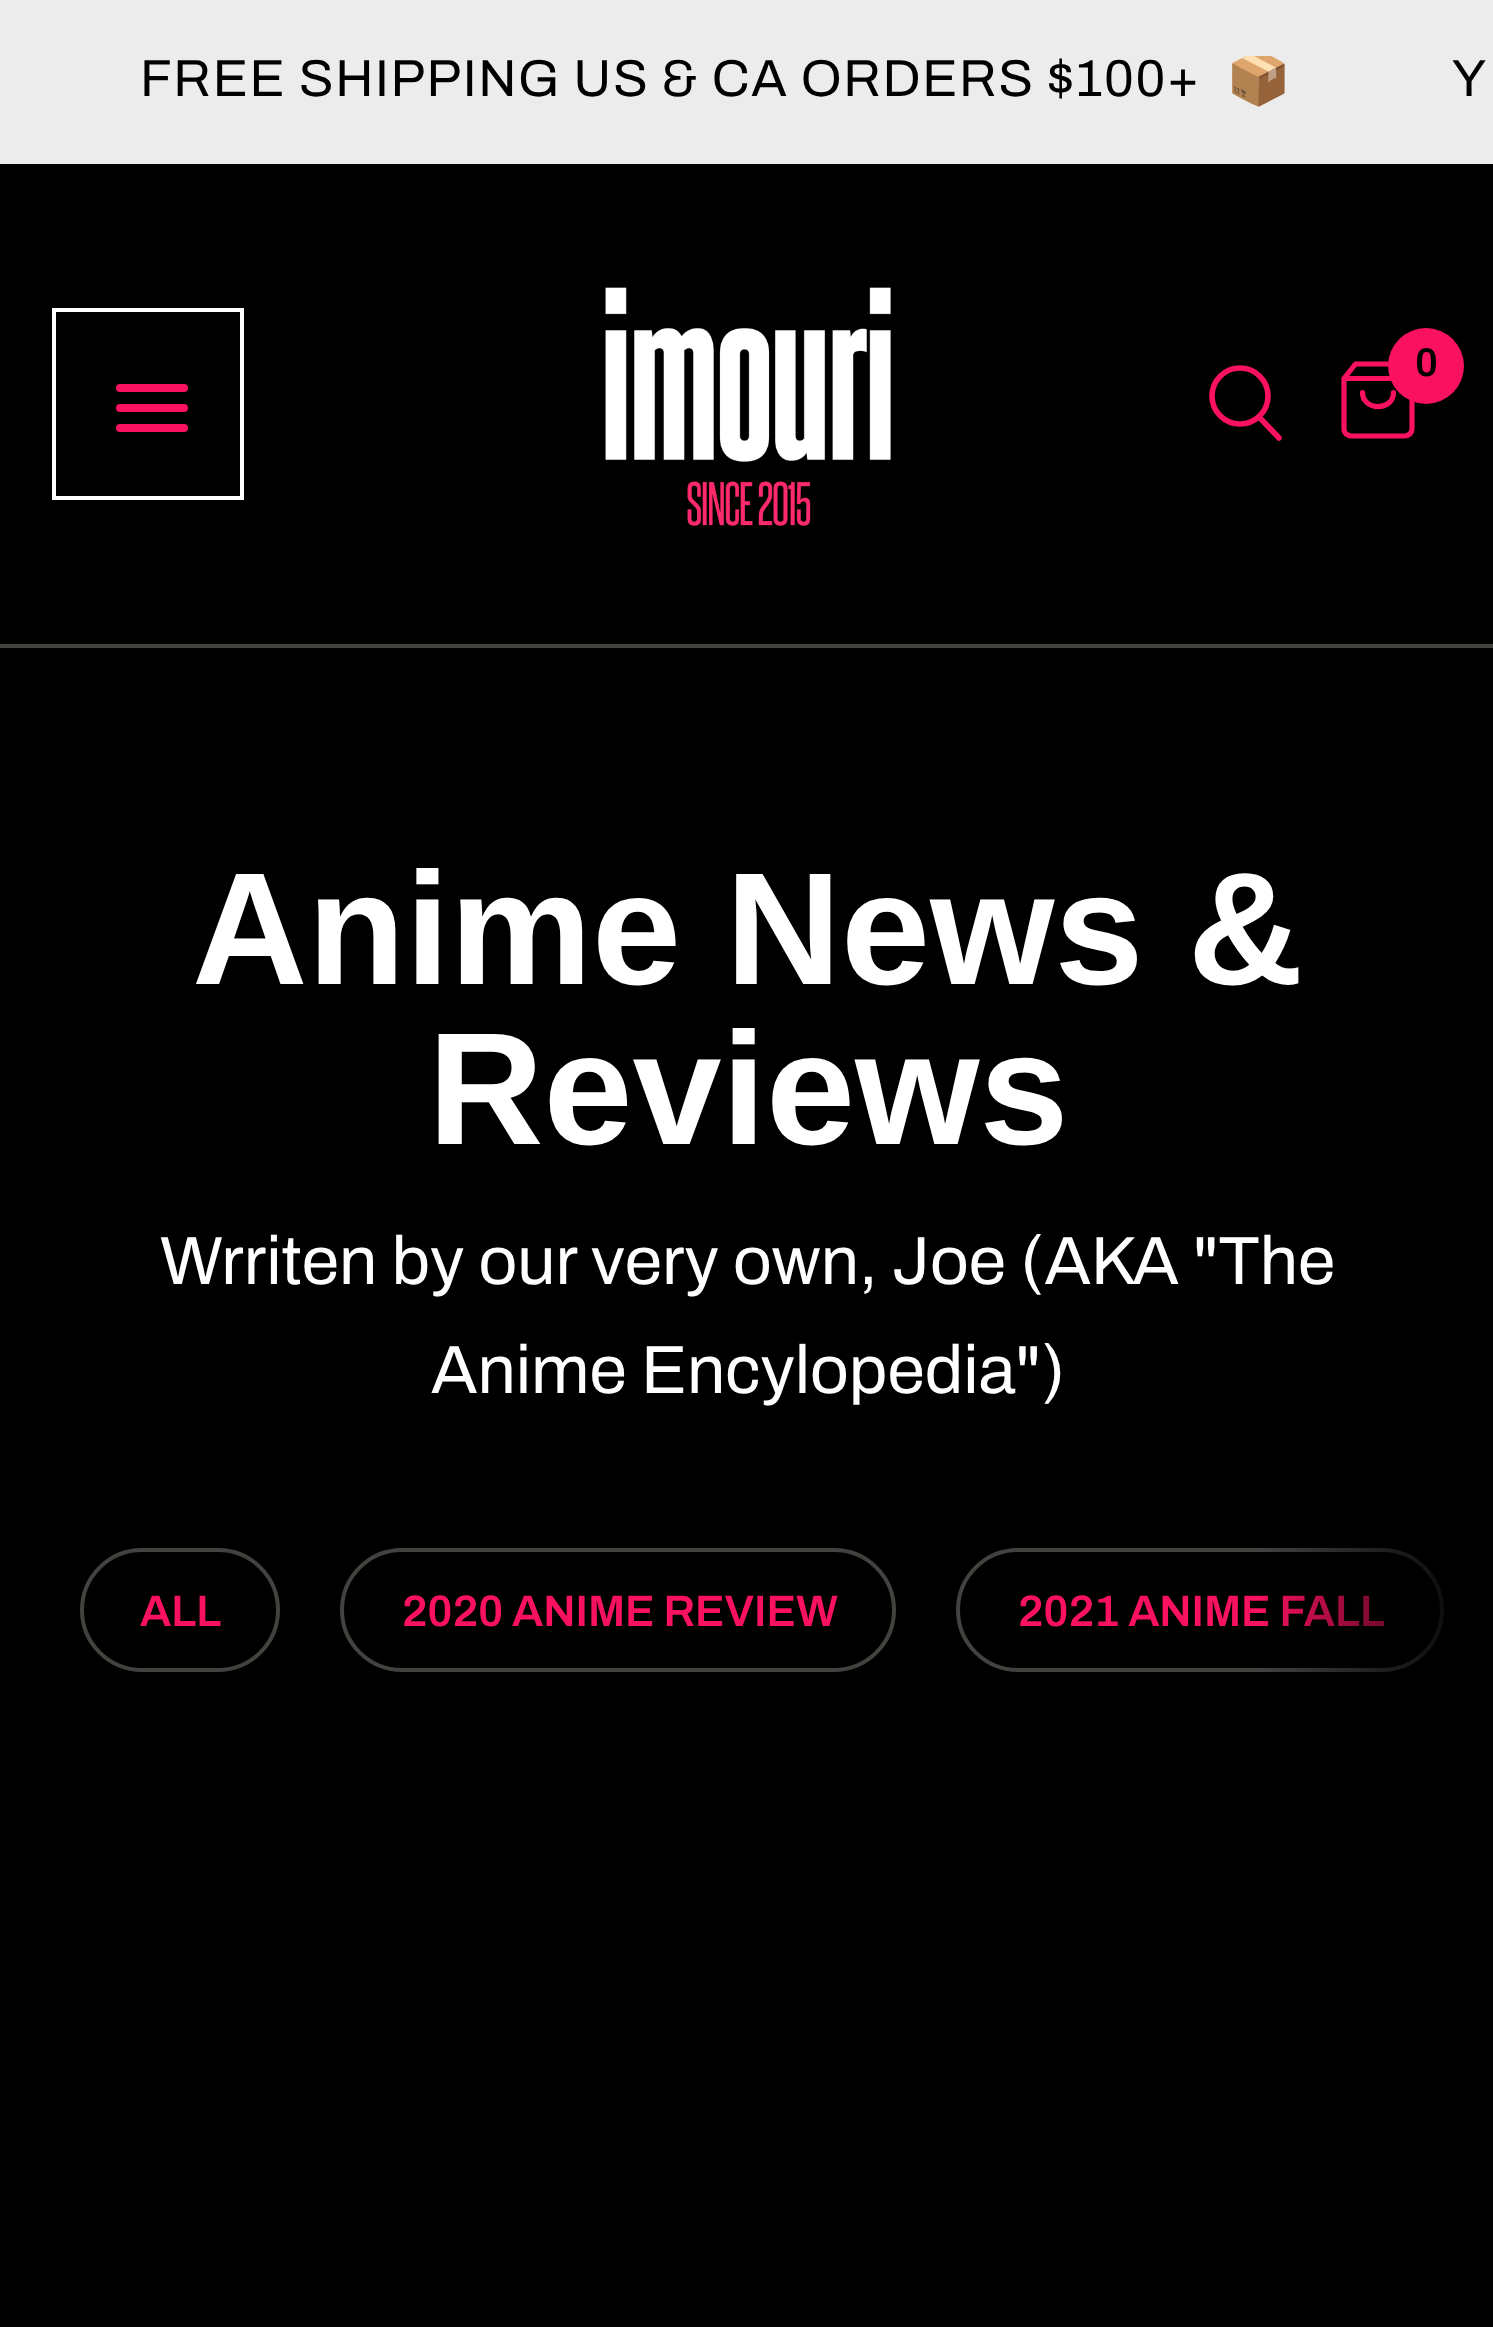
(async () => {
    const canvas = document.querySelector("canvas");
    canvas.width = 1493;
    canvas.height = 2327;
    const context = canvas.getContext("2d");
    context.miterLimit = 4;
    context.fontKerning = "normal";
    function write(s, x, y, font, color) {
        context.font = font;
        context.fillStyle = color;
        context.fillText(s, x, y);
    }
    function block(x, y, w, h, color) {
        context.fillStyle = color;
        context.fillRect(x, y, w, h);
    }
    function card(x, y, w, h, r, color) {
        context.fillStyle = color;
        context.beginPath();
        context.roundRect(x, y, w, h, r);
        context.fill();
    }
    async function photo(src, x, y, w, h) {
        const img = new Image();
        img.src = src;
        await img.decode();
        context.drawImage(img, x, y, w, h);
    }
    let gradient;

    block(0, 0, 1493, 2327, "rgb(0, 0, 0)");
    block(0, 0, 1493, 164, "rgb(236, 236, 236)");
    context.letterSpacing = "1.55px";
    write("FREE SHIPPING US & CA ORDERS $100+", 140, 96, "52px Archivo", "rgb(0, 0, 0)");
    context.save();
    context.beginPath();
    context.rect(0, 56, 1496, 52);
    context.clip();
    write("📦", 1226, 96, "52px Noto Color Emoji", "rgb(0, 0, 0)");
    context.restore();
    write("Y", 1452, 96, "52px Archivo", "rgb(0, 0, 0)");
    block(0, 644, 1493, 4, "rgb(68, 66, 63)");
    context.strokeStyle = "rgb(255, 255, 255)";
    context.lineWidth = 4;
    context.strokeRect(54, 310, 188, 188);
    card(116, 384, 72, 8, 4, "rgb(250, 17, 96)");
    card(116, 404, 72, 8, 4, "rgb(250, 17, 96)");
    card(116, 424, 72, 8, 4, "rgb(250, 17, 96)");
    await photo("media/1.png", 605, 287, 286, 239);
    context.beginPath();
    context.moveTo(1260, 418);
    context.lineTo(1279, 438);
    context.moveTo(1268, 396);
    context.bezierCurveTo(1268, 411.5, 1255.5, 424, 1240, 424);
    context.bezierCurveTo(1224.5, 424, 1212, 411.5, 1212, 396);
    context.bezierCurveTo(1212, 380.5, 1224.5, 368, 1240, 368);
    context.bezierCurveTo(1255.5, 368, 1268, 380.5, 1268, 396);
    context.closePath();
    context.strokeStyle = "rgb(250, 17, 96)";
    context.lineWidth = 5.6;
    context.lineCap = "round";
    context.lineJoin = "round";
    context.stroke();
    context.beginPath();
    context.moveTo(1344, 378.5);
    context.lineTo(1355.5, 364);
    context.lineTo(1401, 364);
    context.lineTo(1412, 378.5);
    context.moveTo(1344, 378.5);
    context.lineTo(1344, 429);
    context.bezierCurveTo(1344, 433, 1347.5, 436, 1351.5, 436);
    context.lineTo(1404.5, 436);
    context.bezierCurveTo(1408.5, 436, 1412, 433, 1412, 429);
    context.lineTo(1412, 378.5);
    context.moveTo(1344, 378.5);
    context.lineTo(1412, 378.5);
    context.moveTo(1393.5, 392.5);
    context.bezierCurveTo(1393.5, 411.5, 1362.5, 411, 1362.5, 392.5);
    context.lineWidth = 5.2;
    context.stroke();
    context.beginPath();
    context.arc(1426, 366, 38, 0, Math.PI * 2);
    context.fill();
    context.letterSpacing = "0px";
    write("0", 1415, 376, "600 40px Archivo", "rgb(0, 0, 0)");
    write("Anime News &", 192, 984, "bold 160px Arimo", "rgb(255, 255, 255)");
    write("Reviews", 428, 1144, "bold 160px Arimo", "rgb(255, 255, 255)");
    write("Wrriten by our very own, Joe (AKA \"The", 160, 1284, "68px Archivo", "rgb(255, 255, 255)");
    write("Anime Encylopedia\")", 431, 1393, "68px Archivo", "rgb(255, 255, 255)");
    context.beginPath();
    context.roundRect(958, 1550, 484, 120, 60);
    context.strokeStyle = "rgb(68, 66, 63)";
    context.lineWidth = 4;
    context.lineJoin = "miter";
    context.stroke();
    write("2021 ANIME FALL", 1018, 1626, "600 44px Archivo", "rgb(250, 17, 96)");
    gradient = context.createLinearGradient(1256, 1608, 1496, 1608);
    gradient.addColorStop(0, "rgba(0, 0, 0, 0)");
    gradient.addColorStop(1, "rgb(0, 0, 0)");
    context.fillStyle = gradient;
    context.fillRect(1261, 1548, 183, 124);
    context.beginPath();
    context.roundRect(82, 1550, 196, 120, 60);
    context.stroke();
    write("ALL", 140, 1626, "600 44px Archivo", "rgb(250, 17, 96)");
    context.beginPath();
    context.roundRect(342, 1550, 552, 120, 60);
    context.stroke();
    write("2020 ANIME REVIEW", 402, 1626, "600 44px Archivo", "rgb(250, 17, 96)");
})();
